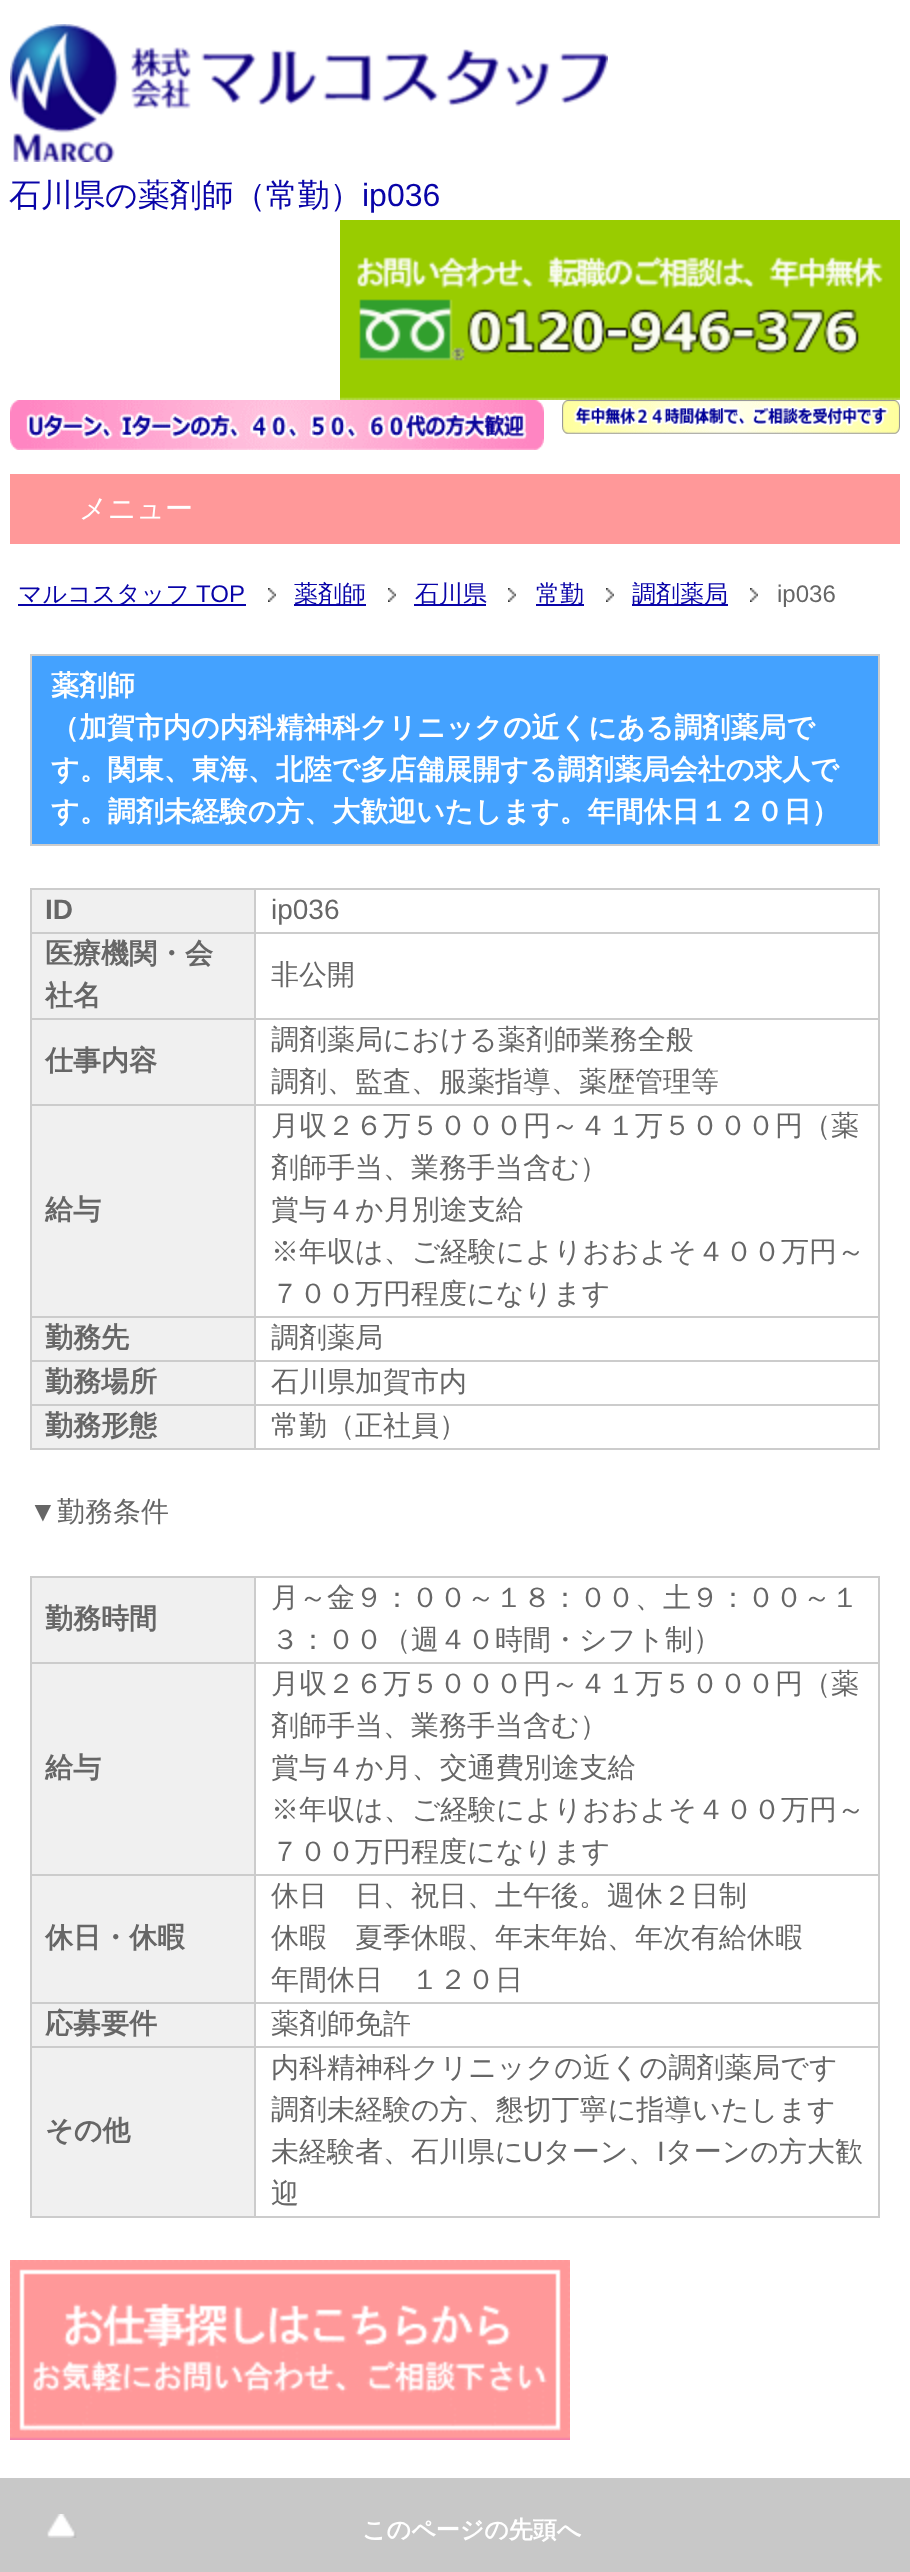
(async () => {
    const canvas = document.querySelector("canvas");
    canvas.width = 910;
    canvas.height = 2572;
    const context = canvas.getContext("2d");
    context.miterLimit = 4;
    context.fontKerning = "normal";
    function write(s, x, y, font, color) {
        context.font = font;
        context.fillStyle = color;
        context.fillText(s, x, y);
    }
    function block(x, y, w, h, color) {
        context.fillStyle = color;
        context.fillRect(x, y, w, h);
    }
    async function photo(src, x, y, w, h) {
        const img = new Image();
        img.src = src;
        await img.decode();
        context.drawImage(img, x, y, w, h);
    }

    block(0, 0, 910, 2572, "rgb(255, 255, 255)");
    await photo("media/1.png", 10, 24, 598, 138);
    write("石川県の薬剤師（常勤）", 9, 206, "500 32px WenQuanYi Zen Hei", "rgb(9, 4, 168)");
    write("ip036", 362, 206, "32px Liberation Sans", "rgb(9, 4, 168)");
    await photo("media/2.png", 340, 220, 560, 180);
    await photo("media/3.png", 10, 400, 534, 50);
    await photo("media/4.png", 562, 400, 338, 34);
    block(10, 474, 890, 70, "rgb(255, 152, 153)");
    write("メニュー", 79, 518, "500 28px WenQuanYi Zen Hei", "rgb(255, 255, 255)");
    block(18, 604, 228, 2, "rgb(9, 4, 168)");
    write("マルコスタッフ", 18, 602, "500 24px WenQuanYi Zen Hei", "rgb(9, 4, 168)");
    write("TOP", 196, 602, "24px Liberation Sans", "rgb(9, 4, 168)");
    await photo("media/5.png", 268, 588, 8, 14);
    block(294, 604, 72, 2, "rgb(9, 4, 168)");
    write("薬剤師", 294, 602, "500 24px WenQuanYi Zen Hei", "rgb(9, 4, 168)");
    await photo("media/5.png", 388, 588, 8, 14);
    block(414, 604, 72, 2, "rgb(9, 4, 168)");
    write("石川県", 415, 602, "500 24px WenQuanYi Zen Hei", "rgb(9, 4, 168)");
    await photo("media/5.png", 508, 588, 8, 14);
    block(536, 604, 48, 2, "rgb(9, 4, 168)");
    write("常勤", 536, 602, "500 24px WenQuanYi Zen Hei", "rgb(9, 4, 168)");
    await photo("media/5.png", 606, 588, 8, 14);
    block(632, 604, 96, 2, "rgb(9, 4, 168)");
    write("調剤薬局", 632, 602, "500 24px WenQuanYi Zen Hei", "rgb(9, 4, 168)");
    await photo("media/5.png", 750, 588, 8, 14);
    write("ip036", 777, 602, "24px Liberation Sans", "rgb(102, 102, 102)");
    block(30, 654, 850, 2, "rgb(204, 204, 204)");
    block(878, 654, 2, 192, "rgb(204, 204, 204)");
    block(30, 844, 850, 2, "rgb(204, 204, 204)");
    block(30, 654, 2, 192, "rgb(204, 204, 204)");
    block(32, 656, 846, 188, "rgb(68, 162, 255)");
    write("薬剤師", 51, 695, "bold 28px WenQuanYi Zen Hei", "rgb(255, 255, 255)");
    write("（加賀市内の内科精神科クリニックの近くにある調剤薬局で", 51, 737, "bold 28px WenQuanYi Zen Hei", "rgb(255, 255, 255)");
    write("す。関東、東海、北陸で多店舗展開する調剤薬局会社の求人で", 51, 779, "bold 28px WenQuanYi Zen Hei", "rgb(255, 255, 255)");
    write("す。調剤未経験の方、大歓迎いたします。年間休日１２０日）", 51, 821, "bold 28px WenQuanYi Zen Hei", "rgb(255, 255, 255)");
    block(32, 890, 222, 42, "rgb(240, 240, 240)");
    block(254, 888, 626, 2, "rgb(204, 204, 204)");
    block(254, 932, 626, 2, "rgb(204, 204, 204)");
    block(254, 1018, 626, 2, "rgb(204, 204, 204)");
    block(254, 1104, 626, 2, "rgb(204, 204, 204)");
    block(254, 1316, 626, 2, "rgb(204, 204, 204)");
    block(254, 1360, 626, 2, "rgb(204, 204, 204)");
    block(254, 1404, 626, 2, "rgb(204, 204, 204)");
    block(878, 1404, 2, 46, "rgb(204, 204, 204)");
    block(254, 1448, 626, 2, "rgb(204, 204, 204)");
    block(254, 1404, 2, 46, "rgb(204, 204, 204)");
    block(30, 1404, 226, 2, "rgb(204, 204, 204)");
    block(254, 1360, 2, 46, "rgb(204, 204, 204)");
    block(30, 1360, 226, 2, "rgb(204, 204, 204)");
    block(254, 1316, 2, 46, "rgb(204, 204, 204)");
    block(30, 1316, 226, 2, "rgb(204, 204, 204)");
    block(254, 1104, 2, 214, "rgb(204, 204, 204)");
    block(30, 1104, 226, 2, "rgb(204, 204, 204)");
    block(254, 1018, 2, 88, "rgb(204, 204, 204)");
    block(30, 1018, 226, 2, "rgb(204, 204, 204)");
    block(254, 932, 2, 88, "rgb(204, 204, 204)");
    block(30, 932, 226, 2, "rgb(204, 204, 204)");
    block(254, 888, 2, 46, "rgb(204, 204, 204)");
    block(30, 888, 226, 2, "rgb(204, 204, 204)");
    block(30, 1448, 226, 2, "rgb(204, 204, 204)");
    block(30, 1404, 2, 46, "rgb(204, 204, 204)");
    block(30, 1360, 2, 46, "rgb(204, 204, 204)");
    block(30, 1316, 2, 46, "rgb(204, 204, 204)");
    block(30, 1104, 2, 214, "rgb(204, 204, 204)");
    block(30, 1018, 2, 88, "rgb(204, 204, 204)");
    block(30, 932, 2, 88, "rgb(204, 204, 204)");
    block(30, 888, 2, 46, "rgb(204, 204, 204)");
    write("ID", 45, 919, "bold 28px Liberation Sans", "rgb(102, 102, 102)");
    block(878, 1360, 2, 46, "rgb(204, 204, 204)");
    block(878, 1316, 2, 46, "rgb(204, 204, 204)");
    block(878, 1104, 2, 214, "rgb(204, 204, 204)");
    block(878, 1018, 2, 88, "rgb(204, 204, 204)");
    block(878, 932, 2, 88, "rgb(204, 204, 204)");
    block(878, 888, 2, 46, "rgb(204, 204, 204)");
    write("ip036", 271, 919, "28px Liberation Sans", "rgb(102, 102, 102)");
    block(32, 934, 222, 84, "rgb(240, 240, 240)");
    write("医療機関・会", 45, 963, "bold 28px WenQuanYi Zen Hei", "rgb(102, 102, 102)");
    write("社名", 45, 1005, "bold 28px WenQuanYi Zen Hei", "rgb(102, 102, 102)");
    write("非公開", 271, 984, "500 28px WenQuanYi Zen Hei", "rgb(102, 102, 102)");
    block(32, 1020, 222, 84, "rgb(240, 240, 240)");
    write("仕事内容", 45, 1070, "bold 28px WenQuanYi Zen Hei", "rgb(102, 102, 102)");
    write("調剤薬局における薬剤師業務全般", 271, 1049, "500 28px WenQuanYi Zen Hei", "rgb(102, 102, 102)");
    write("調剤、監査、服薬指導、薬歴管理等", 271, 1091, "500 28px WenQuanYi Zen Hei", "rgb(102, 102, 102)");
    block(32, 1106, 222, 210, "rgb(240, 240, 240)");
    write("給与", 45, 1219, "bold 28px WenQuanYi Zen Hei", "rgb(102, 102, 102)");
    write("月収２６万５０００円～４１万５０００円（薬", 271, 1135, "500 28px WenQuanYi Zen Hei", "rgb(102, 102, 102)");
    write("剤師手当、業務手当含む）", 271, 1177, "500 28px WenQuanYi Zen Hei", "rgb(102, 102, 102)");
    write("賞与４か月別途支給", 271, 1219, "500 28px WenQuanYi Zen Hei", "rgb(102, 102, 102)");
    write("※年収は、ご経験によりおおよそ４００万円～", 271, 1261, "500 28px WenQuanYi Zen Hei", "rgb(102, 102, 102)");
    write("７００万円程度になります", 271, 1303, "500 28px WenQuanYi Zen Hei", "rgb(102, 102, 102)");
    block(32, 1318, 222, 42, "rgb(240, 240, 240)");
    write("勤務先", 45, 1347, "bold 28px WenQuanYi Zen Hei", "rgb(102, 102, 102)");
    write("調剤薬局", 271, 1347, "500 28px WenQuanYi Zen Hei", "rgb(102, 102, 102)");
    block(32, 1362, 222, 42, "rgb(240, 240, 240)");
    write("勤務場所", 45, 1391, "bold 28px WenQuanYi Zen Hei", "rgb(102, 102, 102)");
    write("石川県加賀市内", 271, 1391, "500 28px WenQuanYi Zen Hei", "rgb(102, 102, 102)");
    block(32, 1406, 222, 42, "rgb(240, 240, 240)");
    write("勤務形態", 45, 1435, "bold 28px WenQuanYi Zen Hei", "rgb(102, 102, 102)");
    write("常勤（正社員）", 271, 1435, "500 28px WenQuanYi Zen Hei", "rgb(102, 102, 102)");
    write("▼", 29, 1521, "28px Liberation Sans", "rgb(102, 102, 102)");
    write("勤務条件", 57, 1521, "500 28px WenQuanYi Zen Hei", "rgb(102, 102, 102)");
    block(32, 1578, 222, 84, "rgb(240, 240, 240)");
    block(254, 1576, 626, 2, "rgb(204, 204, 204)");
    block(254, 1662, 626, 2, "rgb(204, 204, 204)");
    block(254, 1874, 626, 2, "rgb(204, 204, 204)");
    block(254, 2002, 626, 2, "rgb(204, 204, 204)");
    block(254, 2046, 626, 2, "rgb(204, 204, 204)");
    block(878, 2046, 2, 172, "rgb(204, 204, 204)");
    block(254, 2216, 626, 2, "rgb(204, 204, 204)");
    block(254, 2046, 2, 172, "rgb(204, 204, 204)");
    block(30, 2046, 226, 2, "rgb(204, 204, 204)");
    block(254, 2002, 2, 46, "rgb(204, 204, 204)");
    block(30, 2002, 226, 2, "rgb(204, 204, 204)");
    block(254, 1874, 2, 130, "rgb(204, 204, 204)");
    block(30, 1874, 226, 2, "rgb(204, 204, 204)");
    block(254, 1662, 2, 214, "rgb(204, 204, 204)");
    block(30, 1662, 226, 2, "rgb(204, 204, 204)");
    block(254, 1576, 2, 88, "rgb(204, 204, 204)");
    block(30, 1576, 226, 2, "rgb(204, 204, 204)");
    block(30, 2216, 226, 2, "rgb(204, 204, 204)");
    block(30, 2046, 2, 172, "rgb(204, 204, 204)");
    block(30, 2002, 2, 46, "rgb(204, 204, 204)");
    block(30, 1874, 2, 130, "rgb(204, 204, 204)");
    block(30, 1662, 2, 214, "rgb(204, 204, 204)");
    block(30, 1576, 2, 88, "rgb(204, 204, 204)");
    write("勤務時間", 45, 1628, "bold 28px WenQuanYi Zen Hei", "rgb(102, 102, 102)");
    block(878, 2002, 2, 46, "rgb(204, 204, 204)");
    block(878, 1874, 2, 130, "rgb(204, 204, 204)");
    block(878, 1662, 2, 214, "rgb(204, 204, 204)");
    block(878, 1576, 2, 88, "rgb(204, 204, 204)");
    write("月～金９：００～１８：００、土９：００～１", 271, 1607, "500 28px WenQuanYi Zen Hei", "rgb(102, 102, 102)");
    write("３：００（週４０時間・シフト制）", 271, 1649, "500 28px WenQuanYi Zen Hei", "rgb(102, 102, 102)");
    block(32, 1664, 222, 210, "rgb(240, 240, 240)");
    write("給与", 45, 1777, "bold 28px WenQuanYi Zen Hei", "rgb(102, 102, 102)");
    write("月収２６万５０００円～４１万５０００円（薬", 271, 1693, "500 28px WenQuanYi Zen Hei", "rgb(102, 102, 102)");
    write("剤師手当、業務手当含む）", 271, 1735, "500 28px WenQuanYi Zen Hei", "rgb(102, 102, 102)");
    write("賞与４か月、交通費別途支給", 271, 1777, "500 28px WenQuanYi Zen Hei", "rgb(102, 102, 102)");
    write("※年収は、ご経験によりおおよそ４００万円～", 271, 1819, "500 28px WenQuanYi Zen Hei", "rgb(102, 102, 102)");
    write("７００万円程度になります", 271, 1861, "500 28px WenQuanYi Zen Hei", "rgb(102, 102, 102)");
    block(32, 1876, 222, 126, "rgb(240, 240, 240)");
    write("休日・休暇", 45, 1947, "bold 28px WenQuanYi Zen Hei", "rgb(102, 102, 102)");
    write("休日　日、祝日、土午後。週休２日制", 271, 1905, "500 28px WenQuanYi Zen Hei", "rgb(102, 102, 102)");
    write("休暇　夏季休暇、年末年始、年次有給休暇", 271, 1947, "500 28px WenQuanYi Zen Hei", "rgb(102, 102, 102)");
    write("年間休日　１２０日", 271, 1989, "500 28px WenQuanYi Zen Hei", "rgb(102, 102, 102)");
    block(32, 2004, 222, 42, "rgb(240, 240, 240)");
    write("応募要件", 45, 2033, "bold 28px WenQuanYi Zen Hei", "rgb(102, 102, 102)");
    write("薬剤師免許", 271, 2033, "500 28px WenQuanYi Zen Hei", "rgb(102, 102, 102)");
    block(32, 2048, 222, 168, "rgb(240, 240, 240)");
    write("その他", 45, 2140, "bold 28px WenQuanYi Zen Hei", "rgb(102, 102, 102)");
    write("内科精神科クリニックの近くの調剤薬局です", 271, 2077, "500 28px WenQuanYi Zen Hei", "rgb(102, 102, 102)");
    write("調剤未経験の方、懇切丁寧に指導いたします", 271, 2119, "500 28px WenQuanYi Zen Hei", "rgb(102, 102, 102)");
    write("未経験者、石川県に", 271, 2161, "500 28px WenQuanYi Zen Hei", "rgb(102, 102, 102)");
    write("U", 523, 2161, "28px Liberation Sans", "rgb(102, 102, 102)");
    write("ターン、", 543, 2161, "500 28px WenQuanYi Zen Hei", "rgb(102, 102, 102)");
    write("I", 657, 2161, "28px Liberation Sans", "rgb(102, 102, 102)");
    write("ターンの方大歓", 665, 2161, "500 28px WenQuanYi Zen Hei", "rgb(102, 102, 102)");
    write("迎", 271, 2203, "500 28px WenQuanYi Zen Hei", "rgb(102, 102, 102)");
    await photo("media/6.png", 10, 2260, 560, 180);
    block(0, 2478, 910, 94, "rgb(200, 200, 200)");
    await photo("media/7.png", 47, 2514, 30, 24);
    write("このページの先頭へ", 362, 2538, "bold 24px WenQuanYi Zen Hei", "rgb(255, 255, 255)");
})();
